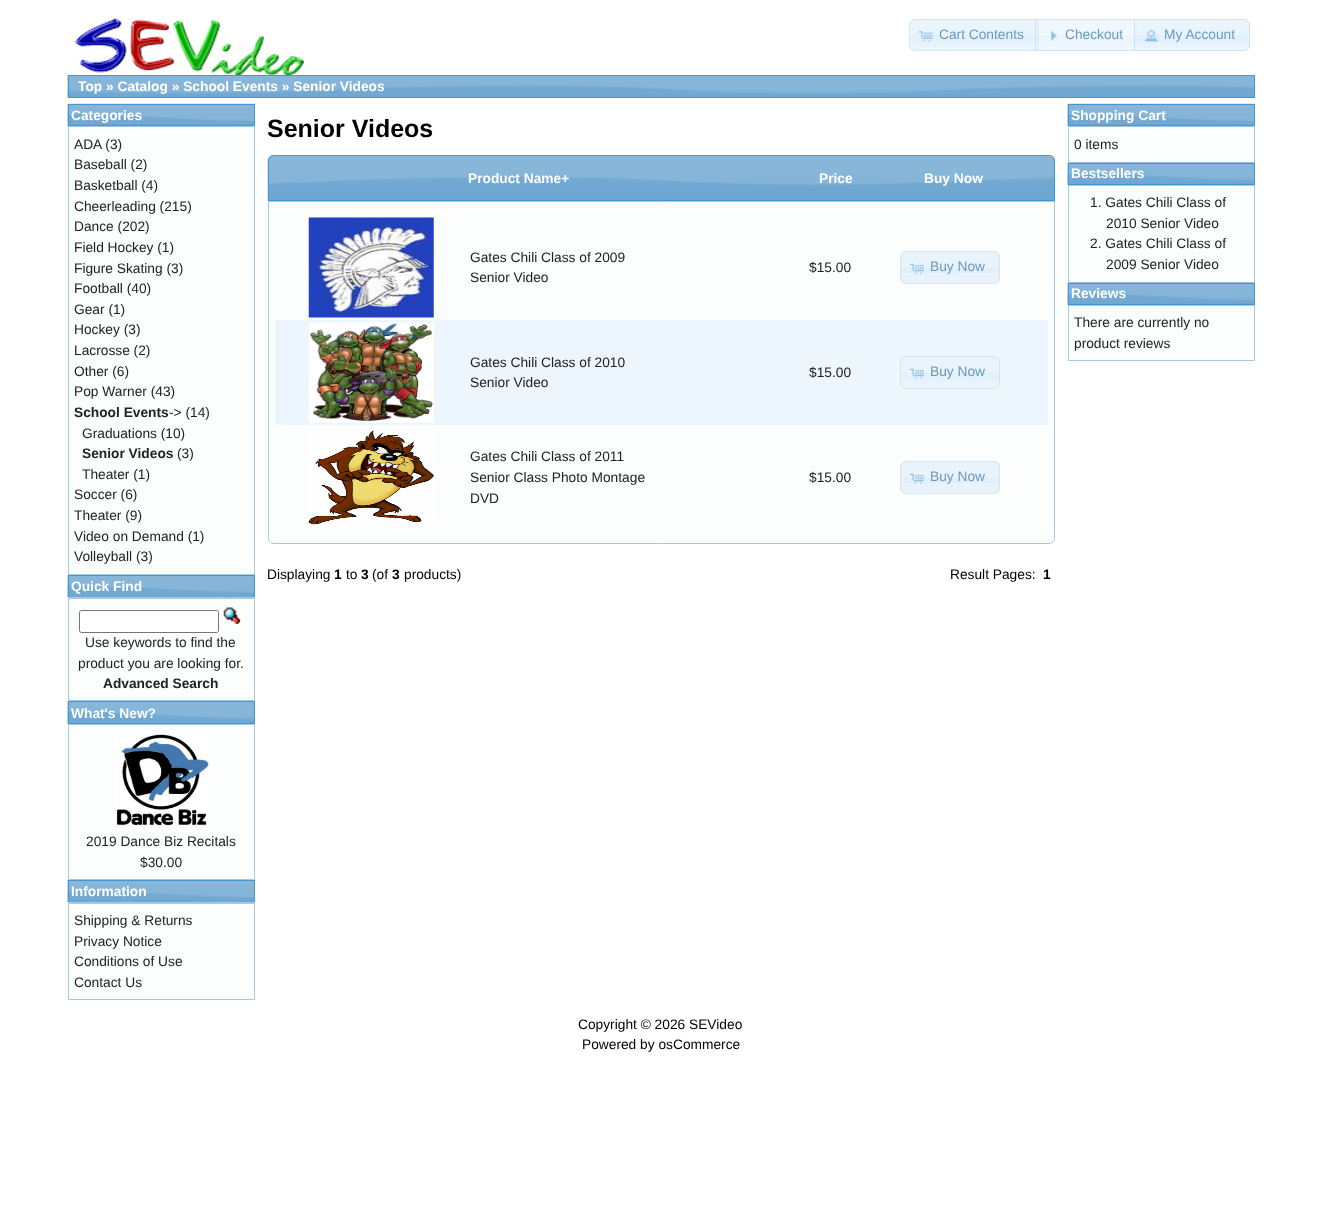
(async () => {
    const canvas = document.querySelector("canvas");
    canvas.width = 1321;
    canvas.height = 1206;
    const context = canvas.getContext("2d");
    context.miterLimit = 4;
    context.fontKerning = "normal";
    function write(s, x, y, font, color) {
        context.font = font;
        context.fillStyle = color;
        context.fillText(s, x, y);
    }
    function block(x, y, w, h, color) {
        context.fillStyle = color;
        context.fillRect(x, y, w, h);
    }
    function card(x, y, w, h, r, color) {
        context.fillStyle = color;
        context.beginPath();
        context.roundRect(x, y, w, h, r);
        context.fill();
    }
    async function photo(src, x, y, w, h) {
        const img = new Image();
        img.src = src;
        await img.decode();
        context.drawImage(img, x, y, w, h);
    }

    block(0, 0, 1321, 1206, "rgb(255, 255, 255)");
    await photo("media/1.png", 74, 18, 230, 57);
    context.fillStyle = "rgb(233, 244, 253)";
    context.beginPath();
    context.roundRect(909, 19, 130, 32, [6, 0, 0, 6]);
    context.fill();
    await photo("media/2.png", 909, 19, 129, 29);
    context.beginPath();
    context.roundRect(909.5, 19.5, 129, 31, [5.5, 0, 0, 5.5]);
    context.strokeStyle = "rgb(214, 230, 242)";
    context.stroke();
    await photo("media/3.png", 918, 31, 15, 11);
    write("Cart Contents", 939, 39, "13.75px Liberation Sans", "rgb(109, 154, 187)");
    await photo("media/4.png", 1035, 18, 103, 33);
    context.strokeStyle = "rgba(197, 219, 236, 0.7)";
    context.strokeRect(1035.5, 19.5, 102, 31);
    await photo("media/5.png", 1051, 31, 6, 10);
    write("Checkout", 1065, 39, "13.75px Liberation Sans", "rgb(109, 154, 187)");
    context.fillStyle = "rgba(223, 239, 252, 0.7)";
    context.beginPath();
    context.roundRect(1134, 19, 116, 32, [0, 6, 6, 0]);
    context.fill();
    await photo("media/6.png", 1134, 19, 116, 32);
    context.beginPath();
    context.roundRect(1134.5, 19.5, 115, 31, [0, 5.5, 5.5, 0]);
    context.stroke();
    await photo("media/7.png", 1144, 29, 14, 13);
    write("My Account", 1164, 39, "13.75px Liberation Sans", "rgb(109, 154, 187)");
    await photo("media/8.png", 67, 75, 1187, 23);
    context.strokeStyle = "rgb(66, 151, 215)";
    context.strokeRect(68.5, 75.5, 1186, 22);
    write("Top » Catalog » School Events » Senior Videos", 78, 91, "bold 13.75px Liberation Sans", "rgb(255, 255, 255)");
    await photo("media/9.png", 67, 103, 188, 24);
    context.strokeRect(68.5, 104.5, 186, 21);
    write("Categories", 71, 120, "bold 13.75px Liberation Sans", "rgb(255, 255, 255)");
    context.fillStyle = "rgb(252, 253, 253)";
    context.beginPath();
    context.rect(68.5, 126.5, 186, 448);
    context.fill();
    context.strokeStyle = "rgb(166, 201, 226)";
    context.stroke();
    write("ADA (3)", 74, 149, "13.75px Liberation Sans", "rgb(34, 34, 34)");
    write("Baseball (2)", 74, 169, "13.75px Liberation Sans", "rgb(34, 34, 34)");
    write("Basketball (4)", 74, 190, "13.75px Liberation Sans", "rgb(34, 34, 34)");
    write("Cheerleading (215)", 74, 211, "13.75px Liberation Sans", "rgb(34, 34, 34)");
    write("Dance (202)", 74, 231, "13.75px Liberation Sans", "rgb(34, 34, 34)");
    write("Field Hockey (1)", 74, 252, "13.75px Liberation Sans", "rgb(34, 34, 34)");
    write("Figure Skating (3)", 74, 273, "13.75px Liberation Sans", "rgb(34, 34, 34)");
    write("Football (40)", 74, 293, "13.75px Liberation Sans", "rgb(34, 34, 34)");
    write("Gear (1)", 74, 314, "13.75px Liberation Sans", "rgb(34, 34, 34)");
    write("Hockey (3)", 74, 334, "13.75px Liberation Sans", "rgb(34, 34, 34)");
    write("Lacrosse (2)", 74, 355, "13.75px Liberation Sans", "rgb(34, 34, 34)");
    write("Other (6)", 74, 376, "13.75px Liberation Sans", "rgb(34, 34, 34)");
    write("Pop Warner (43)", 74, 396, "13.75px Liberation Sans", "rgb(34, 34, 34)");
    write("School Events", 74, 417, "bold 13.75px Liberation Sans", "rgb(34, 34, 34)");
    write("-> (14)", 169, 417, "13.75px Liberation Sans", "rgb(34, 34, 34)");
    write("Graduations (10)", 82, 438, "13.75px Liberation Sans", "rgb(34, 34, 34)");
    write("Senior Videos", 82, 458, "bold 13.75px Liberation Sans", "rgb(34, 34, 34)");
    write("(3)", 177, 458, "13.75px Liberation Sans", "rgb(34, 34, 34)");
    write("Theater (1)", 82, 479, "13.75px Liberation Sans", "rgb(34, 34, 34)");
    write("Soccer (6)", 74, 499, "13.75px Liberation Sans", "rgb(34, 34, 34)");
    write("Theater (9)", 74, 520, "13.75px Liberation Sans", "rgb(34, 34, 34)");
    write("Video on Demand (1)", 74, 541, "13.75px Liberation Sans", "rgb(34, 34, 34)");
    write("Volleyball (3)", 74, 561, "13.75px Liberation Sans", "rgb(34, 34, 34)");
    await photo("media/10.png", 67, 575, 187, 23);
    context.strokeStyle = "rgb(66, 151, 215)";
    context.strokeRect(68.5, 575.5, 186, 22);
    write("Quick Find", 71, 591, "bold 13.75px Liberation Sans", "rgb(255, 255, 255)");
    context.fillStyle = "rgb(252, 253, 253)";
    context.beginPath();
    context.rect(68.5, 598.5, 186, 102);
    context.fill();
    context.strokeStyle = "rgb(166, 201, 226)";
    context.stroke();
    await photo("media/11.png", 67, 597, 188, 1);
    context.fillStyle = "rgb(255, 255, 255)";
    context.beginPath();
    context.roundRect(79.5, 610.5, 139, 22, 2);
    context.fill();
    context.strokeStyle = "rgb(118, 118, 118)";
    context.stroke();
    await photo("media/12.png", 223, 607, 18, 17);
    write("Use keywords to find the", 85, 647, "13.75px Liberation Sans", "rgb(34, 34, 34)");
    write("product you are looking for.", 78, 668, "13.75px Liberation Sans", "rgb(34, 34, 34)");
    write("Advanced Search", 103, 688, "bold 13.75px Liberation Sans", "rgb(34, 34, 34)");
    await photo("media/13.png", 67, 701, 187, 23);
    context.strokeStyle = "rgb(66, 151, 215)";
    context.strokeRect(68.5, 701.5, 186, 22);
    write("What's New?", 71, 718, "bold 13.75px Liberation Sans", "rgb(255, 255, 255)");
    context.fillStyle = "rgb(252, 253, 253)";
    context.beginPath();
    context.rect(68.5, 724.5, 186, 155);
    context.fill();
    context.strokeStyle = "rgb(166, 201, 226)";
    context.stroke();
    await photo("media/14.png", 115, 731, 96, 96);
    write("2019 Dance Biz Recitals", 86, 846, "13.75px Liberation Sans", "rgb(34, 34, 34)");
    write("$30.00", 140, 867, "13.75px Liberation Sans", "rgb(34, 34, 34)");
    await photo("media/15.png", 67, 880, 187, 23);
    context.strokeStyle = "rgb(66, 151, 215)";
    context.strokeRect(68.5, 880.5, 186, 22);
    write("Information", 71, 896, "bold 13.75px Liberation Sans", "rgb(255, 255, 255)");
    context.fillStyle = "rgb(252, 253, 253)";
    context.beginPath();
    context.rect(68.5, 903.5, 186, 96);
    context.fill();
    context.strokeStyle = "rgb(166, 201, 226)";
    context.stroke();
    await photo("media/16.png", 67, 902, 188, 1);
    write("Shipping & Returns", 74, 925, "13.75px Liberation Sans", "rgb(34, 34, 34)");
    write("Privacy Notice", 74, 946, "13.75px Liberation Sans", "rgb(34, 34, 34)");
    write("Conditions of Use", 74, 966, "13.75px Liberation Sans", "rgb(34, 34, 34)");
    write("Contact Us", 74, 987, "13.75px Liberation Sans", "rgb(34, 34, 34)");
    write("Senior Videos", 267, 137, "bold 25px Liberation Sans", "rgb(0, 0, 0)");
    await photo("media/17.png", 267, 155, 788, 46);
    context.beginPath();
    context.roundRect(268.5, 155.5, 786, 45, [5.5, 5.5, 0, 0]);
    context.strokeStyle = "rgb(66, 151, 215)";
    context.stroke();
    write("Product Name+", 468, 183, "bold 13.75px Liberation Sans", "rgb(255, 255, 255)");
    write("Price", 819, 183, "bold 13.75px Liberation Sans", "rgb(255, 255, 255)");
    write("Buy Now", 924, 183, "bold 13.75px Liberation Sans", "rgb(255, 255, 255)");
    context.fillStyle = "rgb(252, 253, 253)";
    context.beginPath();
    context.roundRect(268.5, 201.5, 786, 342, [0, 0, 5.5, 5.5]);
    context.fill();
    context.strokeStyle = "rgb(166, 201, 226)";
    context.stroke();
    await photo("media/18.png", 308, 217, 126, 101);
    write("Gates Chili Class of 2009", 470, 262, "13.75px Liberation Sans", "rgb(34, 34, 34)");
    write("Senior Video", 470, 282, "13.75px Liberation Sans", "rgb(34, 34, 34)");
    write("$15.00", 809, 272, "13.75px Liberation Sans", "rgb(34, 34, 34)");
    card(900, 251, 100, 33, 6, "rgb(232, 243, 252)");
    block(900, 268, 100, 5, "rgb(225, 240, 252)");
    context.beginPath();
    context.roundRect(900.5, 251.5, 99, 32, 5.5);
    context.strokeStyle = "rgb(214, 229, 241)";
    context.stroke();
    await photo("media/19.png", 909, 263, 15, 11);
    write("Buy Now", 930, 271, "13.75px Liberation Sans", "rgb(109, 154, 187)");
    block(275, 320, 773, 105, "rgb(236, 246, 252)");
    await photo("media/20.png", 308, 322, 126, 101);
    write("Gates Chili Class of 2010", 470, 367, "13.75px Liberation Sans", "rgb(34, 34, 34)");
    write("Senior Video", 470, 387, "13.75px Liberation Sans", "rgb(34, 34, 34)");
    write("$15.00", 809, 377, "13.75px Liberation Sans", "rgb(34, 34, 34)");
    await photo("media/21.png", 900, 357, 100, 31);
    context.beginPath();
    context.roundRect(900.5, 356.5, 99, 32, 5.5);
    context.strokeStyle = "rgb(209, 227, 241)";
    context.stroke();
    await photo("media/22.png", 909, 368, 15, 11);
    write("Buy Now", 930, 376, "13.75px Liberation Sans", "rgb(103, 151, 186)");
    await photo("media/23.png", 308, 430, 126, 95);
    write("Gates Chili Class of 2011", 470, 461, "13.75px Liberation Sans", "rgb(34, 34, 34)");
    write("Senior Class Photo Montage", 470, 482, "13.75px Liberation Sans", "rgb(34, 34, 34)");
    write("DVD", 470, 503, "13.75px Liberation Sans", "rgb(34, 34, 34)");
    write("$15.00", 809, 482, "13.75px Liberation Sans", "rgb(34, 34, 34)");
    card(900, 461, 100, 33, 6, "rgb(232, 243, 252)");
    block(900, 478, 100, 5, "rgb(225, 240, 252)");
    context.beginPath();
    context.roundRect(900.5, 461.5, 99, 32, 5.5);
    context.strokeStyle = "rgb(214, 229, 241)";
    context.stroke();
    await photo("media/19.png", 909, 473, 15, 11);
    write("Buy Now", 930, 481, "13.75px Liberation Sans", "rgb(109, 154, 187)");
    write("Displaying", 267, 579, "13.75px Liberation Sans", "rgb(0, 0, 0)");
    write("1", 334, 579, "bold 13.75px Liberation Sans", "rgb(0, 0, 0)");
    write("to", 346, 579, "13.75px Liberation Sans", "rgb(0, 0, 0)");
    write("3", 361, 579, "bold 13.75px Liberation Sans", "rgb(0, 0, 0)");
    write("(of", 372, 579, "13.75px Liberation Sans", "rgb(0, 0, 0)");
    write("3", 392, 579, "bold 13.75px Liberation Sans", "rgb(0, 0, 0)");
    write("products)", 404, 579, "13.75px Liberation Sans", "rgb(0, 0, 0)");
    write("Result Pages:", 950, 579, "13.75px Liberation Sans", "rgb(0, 0, 0)");
    write("1", 1043, 579, "bold 13.75px Liberation Sans", "rgb(0, 0, 0)");
    await photo("media/24.png", 1067, 103, 188, 23);
    context.strokeStyle = "rgb(66, 151, 215)";
    context.strokeRect(1068.5, 104.5, 186, 21);
    write("Shopping Cart", 1071, 120, "bold 13.75px Liberation Sans", "rgb(255, 255, 255)");
    context.fillStyle = "rgb(252, 253, 253)";
    context.beginPath();
    context.rect(1068.5, 126.5, 186, 36);
    context.fill();
    context.strokeStyle = "rgb(166, 201, 226)";
    context.stroke();
    block(1067, 126, 1, 1, "rgb(243, 248, 251)");
    write("0 items", 1074, 149, "13.75px Liberation Sans", "rgb(34, 34, 34)");
    await photo("media/25.png", 1067, 162, 188, 23);
    context.strokeStyle = "rgb(66, 151, 215)";
    context.strokeRect(1068.5, 163.5, 186, 21);
    write("Bestsellers", 1071, 178, "bold 13.75px Liberation Sans", "rgb(255, 255, 255)");
    context.fillStyle = "rgb(252, 253, 253)";
    context.beginPath();
    context.rect(1068.5, 185.5, 186, 97);
    context.fill();
    context.strokeStyle = "rgb(166, 201, 226)";
    context.stroke();
    write("1. Gates Chili Class of", 1090, 207, "13.75px Liberation Sans", "rgb(34, 34, 34)");
    write("2010 Senior Video", 1106, 228, "13.75px Liberation Sans", "rgb(34, 34, 34)");
    write("2. Gates Chili Class of", 1090, 248, "13.75px Liberation Sans", "rgb(34, 34, 34)");
    write("2009 Senior Video", 1106, 269, "13.75px Liberation Sans", "rgb(34, 34, 34)");
    await photo("media/26.png", 1067, 282, 188, 23);
    context.strokeStyle = "rgb(66, 151, 215)";
    context.strokeRect(1068.5, 283.5, 186, 21);
    write("Reviews", 1071, 298, "bold 13.75px Liberation Sans", "rgb(255, 255, 255)");
    context.fillStyle = "rgb(252, 253, 253)";
    context.beginPath();
    context.rect(1068.5, 305.5, 186, 55);
    context.fill();
    context.strokeStyle = "rgb(166, 201, 226)";
    context.stroke();
    write("There are currently no", 1074, 327, "13.75px Liberation Sans", "rgb(34, 34, 34)");
    write("product reviews", 1074, 348, "13.75px Liberation Sans", "rgb(34, 34, 34)");
    write("Copyright © 2026 SEVideo", 578, 1029, "13.75px Liberation Sans", "rgb(0, 0, 0)");
    write("Powered by osCommerce", 582, 1049, "13.75px Liberation Sans", "rgb(0, 0, 0)");
})();
